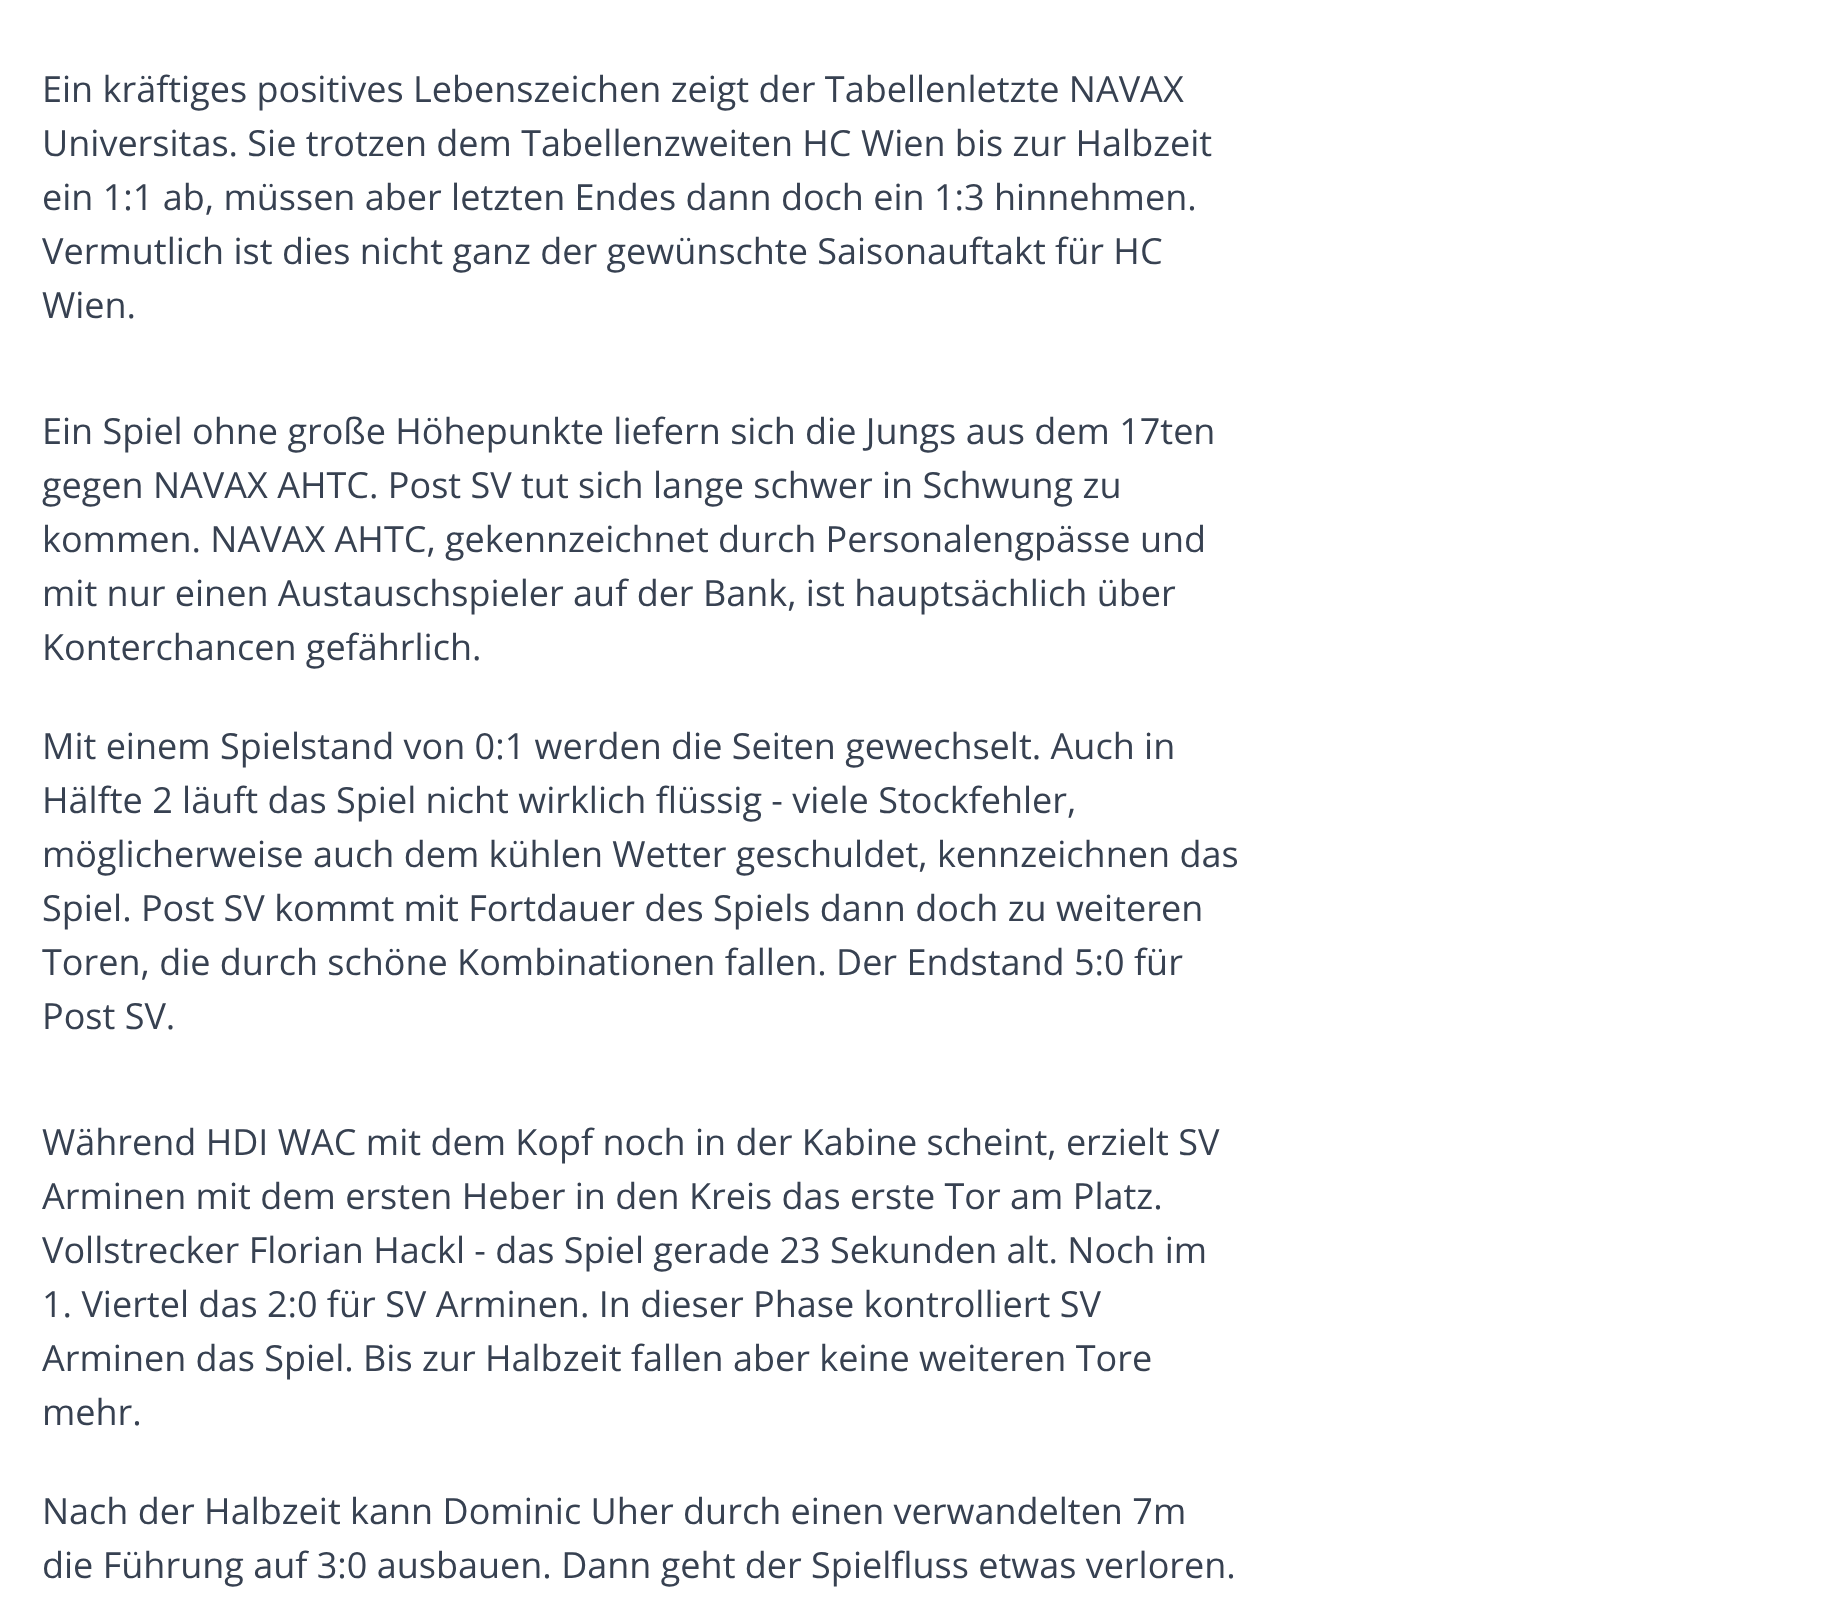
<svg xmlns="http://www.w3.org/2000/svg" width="1831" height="1605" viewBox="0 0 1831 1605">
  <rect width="100%" height="100%" fill="rgb(255,255,255)"/>
  <g font-family="Open Sans" font-size="36" fill="rgb(55,65,81)">
    <text>
      <tspan x="42" y="102">Ein kräftiges positives Lebenszeichen zeigt der Tabellenletzte NAVAX</tspan>
      <tspan x="42" y="156">Universitas. Sie trotzen dem Tabellenzweiten HC Wien bis zur Halbzeit</tspan>
      <tspan x="42" y="210">ein 1:1 ab, müssen aber letzten Endes dann doch ein 1:3 hinnehmen.</tspan>
      <tspan x="42" y="264">Vermutlich ist dies nicht ganz der gewünschte Saisonauftakt für HC</tspan>
      <tspan x="42" y="318">Wien.</tspan>
    </text>
    <text>
      <tspan x="42" y="444">Ein Spiel ohne große Höhepunkte liefern sich die Jungs aus dem 17ten</tspan>
      <tspan x="42" y="498">gegen NAVAX AHTC. Post SV tut sich lange schwer in Schwung zu</tspan>
      <tspan x="42" y="552">kommen. NAVAX AHTC, gekennzeichnet durch Personalengpässe und</tspan>
      <tspan x="42" y="606">mit nur einen Austauschspieler auf der Bank, ist hauptsächlich über</tspan>
      <tspan x="42" y="660">Konterchancen gefährlich.</tspan>
    </text>
    <text>
      <tspan x="42" y="759">Mit einem Spielstand von 0:1 werden die Seiten gewechselt. Auch in</tspan>
      <tspan x="42" y="813">Hälfte 2 läuft das Spiel nicht wirklich flüssig - viele Stockfehler,</tspan>
      <tspan x="42" y="867">möglicherweise auch dem kühlen Wetter geschuldet, kennzeichnen das</tspan>
      <tspan x="42" y="921">Spiel. Post SV kommt mit Fortdauer des Spiels dann doch zu weiteren</tspan>
      <tspan x="42" y="975">Toren, die durch schöne Kombinationen fallen. Der Endstand 5:0 für</tspan>
      <tspan x="42" y="1029">Post SV.</tspan>
    </text>
    <text>
      <tspan x="42" y="1155">Während HDI WAC mit dem Kopf noch in der Kabine scheint, erzielt SV</tspan>
      <tspan x="42" y="1209">Arminen mit dem ersten Heber in den Kreis das erste Tor am Platz.</tspan>
      <tspan x="42" y="1263">Vollstrecker Florian Hackl - das Spiel gerade 23 Sekunden alt. Noch im</tspan>
      <tspan x="42" y="1317">1. Viertel das 2:0 für SV Arminen. In dieser Phase kontrolliert SV</tspan>
      <tspan x="42" y="1371">Arminen das Spiel. Bis zur Halbzeit fallen aber keine weiteren Tore</tspan>
      <tspan x="42" y="1425">mehr.</tspan>
    </text>
    <text>
      <tspan x="42" y="1524">Nach der Halbzeit kann Dominic Uher durch einen verwandelten 7m</tspan>
      <tspan x="42" y="1578">die Führung auf 3:0 ausbauen. Dann geht der Spielfluss etwas verloren.</tspan>
    </text>
  </g>
</svg>
